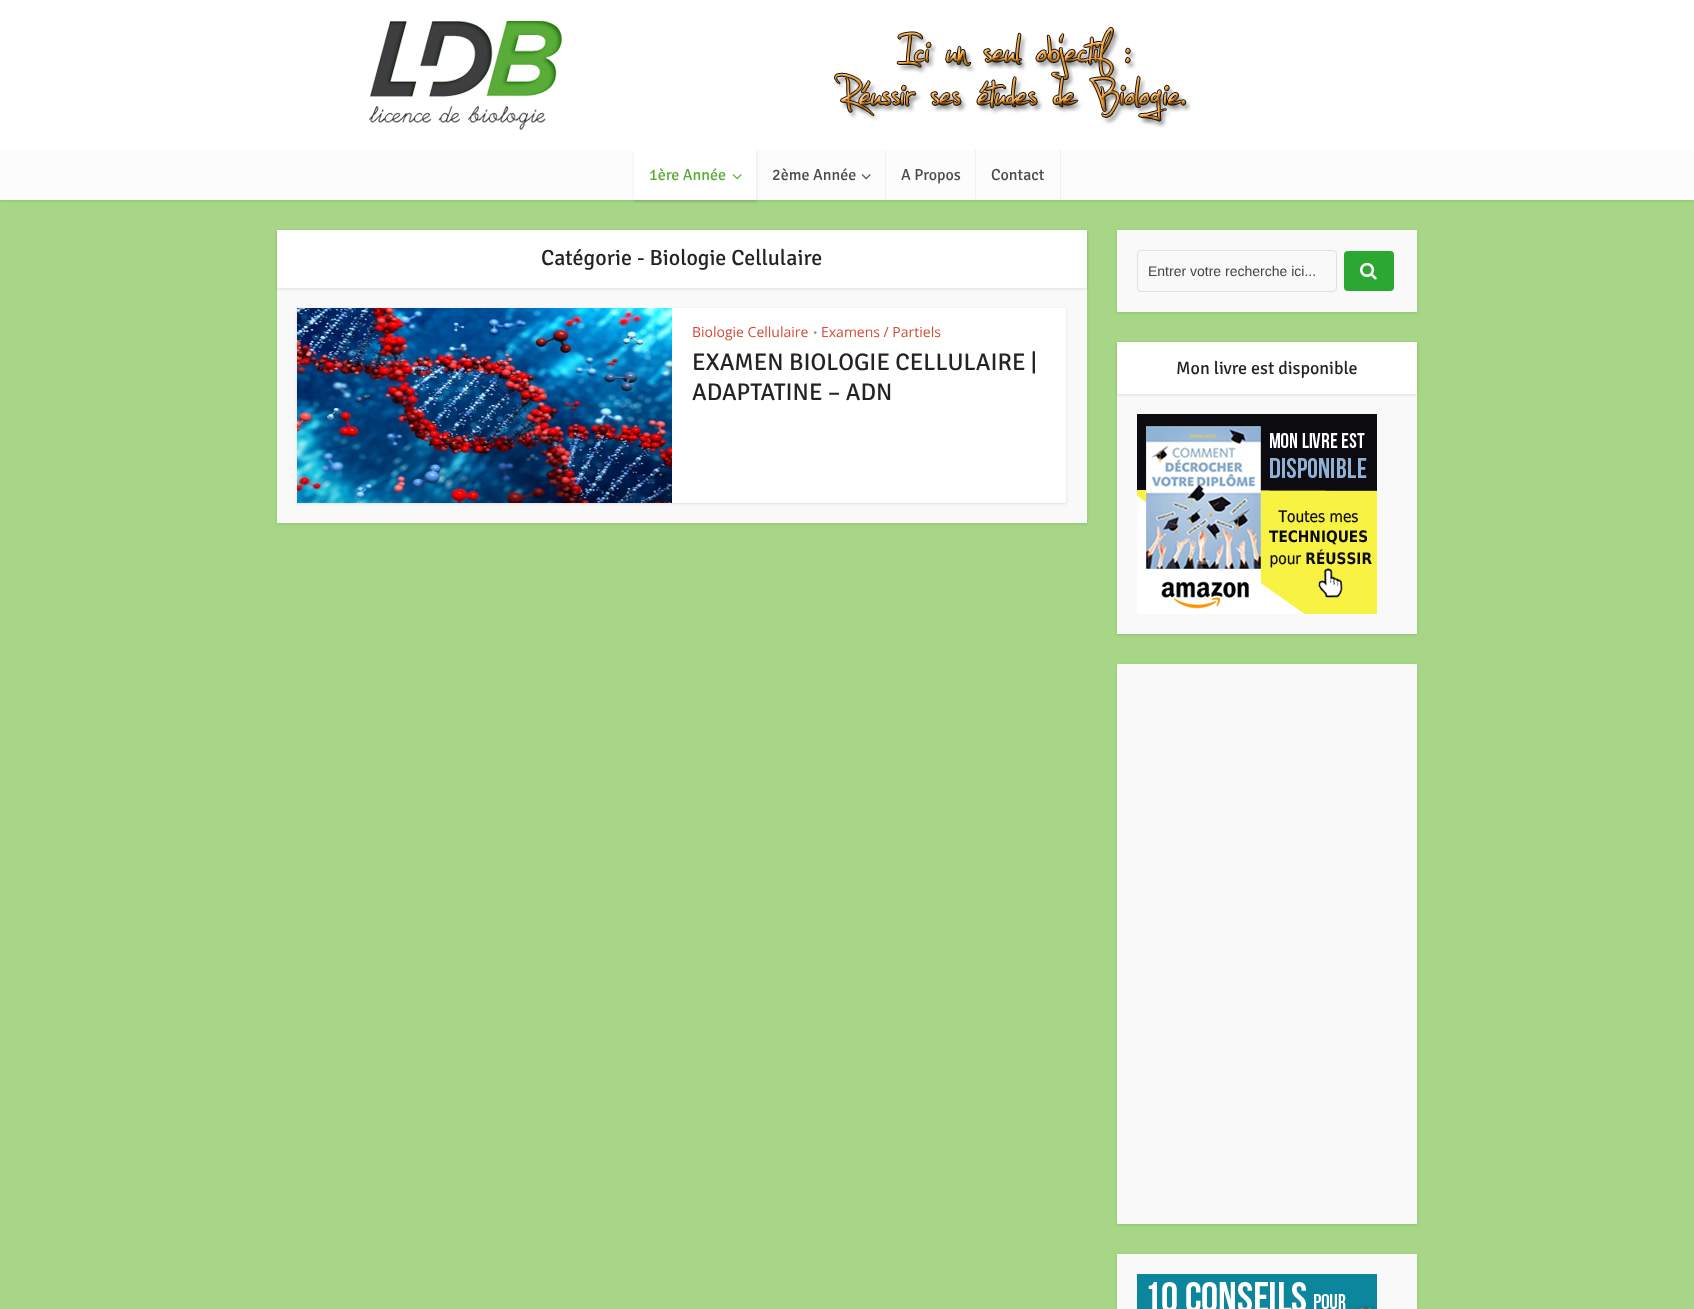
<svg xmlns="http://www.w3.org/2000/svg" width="1694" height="1309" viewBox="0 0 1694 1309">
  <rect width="100%" height="100%" fill="rgb(167,214,134)"/>
  <rect x="0" y="1" width="1694" height="200" fill="rgba(0,0,0,0.1)" filter="blur(1.5px)"/>
  <rect x="0" y="0" width="1694" height="150" fill="rgb(255,255,255)"/>
  <image x="369" y="21" width="822" height="109" href="pic1.png"/>
  <rect x="0" y="150" width="1694" height="50" fill="rgb(252,252,252)"/>
  <rect x="634" y="152" width="123" height="50" fill="rgba(0,0,0,0.1)" filter="blur(1px)"/>
  <rect x="634" y="150" width="122" height="50" fill="rgb(255,255,255)"/>
  <text x="649" y="180" font-family="Signika" font-size="16" font-weight="300" fill="rgb(88,173,56)">1ère Année</text>
  <image x="732" y="174" width="10" height="6" href="pic2.png"/>
  <rect x="756" y="150" width="1" height="50" fill="rgb(242,242,242)"/>
  <text x="772" y="180" font-family="Signika" font-size="16" font-weight="300" fill="rgb(74,74,74)">2ème Année</text>
  <image x="861" y="174" width="10" height="6" href="pic3.png"/>
  <rect x="885" y="150" width="1" height="50" fill="rgb(239,239,239)"/>
  <text x="901" y="180" font-family="Signika" font-size="16" font-weight="300" fill="rgb(74,74,74)">A Propos</text>
  <rect x="1060" y="150" width="1" height="50" fill="rgb(239,239,239)"/>
  <rect x="975" y="150" width="1" height="50" fill="rgb(239,239,239)"/>
  <text x="991" y="180" font-family="Signika" font-size="16" font-weight="300" fill="rgb(74,74,74)">Contact</text>
  <rect x="277" y="231" width="810" height="293" fill="rgba(0,0,0,0.1)" filter="blur(1.5px)"/>
  <rect x="277" y="288" width="810" height="235" fill="rgb(249,249,249)"/>
  <rect x="277" y="231" width="810" height="58" fill="rgba(0,0,0,0.1)" filter="blur(1.5px)"/>
  <rect x="277" y="230" width="810" height="58" fill="rgb(255,255,255)"/>
  <text x="541" y="265" font-family="Signika" font-size="22" font-weight="300" fill="rgb(35,35,35)">Catégorie - Biologie Cellulaire</text>
  <rect x="297" y="309" width="769" height="195" fill="rgba(0,0,0,0.1)" filter="blur(1.5px)"/>
  <rect x="672" y="308" width="394" height="195" fill="rgb(255,255,255)"/>
  <image x="297" y="308" width="375" height="195" href="pic4.png"/>
  <text x="692" y="337" font-family="Open Sans" font-size="14" fill="rgb(207,77,53)">Biologie Cellulaire</text>
  <text x="813" y="337" font-family="Open Sans" font-size="12" fill="rgb(155,155,155)">•</text>
  <text x="821" y="337" font-family="Open Sans" font-size="14" fill="rgb(207,77,53)">Examens / Partiels</text>
  <g font-family="Signika" font-size="24" font-weight="300" fill="rgb(35,35,35)">
    <text>
      <tspan x="692" y="370">EXAMEN BIOLOGIE CELLULAIRE |</tspan>
      <tspan x="692" y="400">ADAPTATINE – ADN</tspan>
    </text>
  </g>
  <rect x="1117" y="231" width="300" height="82" fill="rgba(0,0,0,0.1)" filter="blur(1.5px)"/>
  <rect x="1117" y="230" width="300" height="82" fill="rgb(249,249,249)"/>
  <rect x="1137.5" y="250.5" width="199" height="41" rx="3.5" fill="none" stroke="rgb(224,224,224)"/>
  <text x="1148" y="276" font-family="Liberation Sans" font-size="14" fill="rgb(68,68,68)">Entrer votre recherche ici...</text>
  <rect x="1344" y="251" width="50" height="40" rx="4" fill="rgb(43,168,49)"/>
  <image x="1360" y="262" width="17" height="18" href="pic5.png"/>
  <rect x="1117" y="343" width="300" height="292" fill="rgba(0,0,0,0.1)" filter="blur(1.5px)"/>
  <rect x="1117" y="394" width="300" height="240" fill="rgb(249,249,249)"/>
  <rect x="1117" y="343" width="300" height="52" fill="rgba(0,0,0,0.1)" filter="blur(1.5px)"/>
  <rect x="1117" y="342" width="300" height="52" fill="rgb(255,255,255)"/>
  <text x="1176" y="374" font-family="Signika" font-size="18" font-weight="300" fill="rgb(35,35,35)">Mon livre est disponible</text>
  <image x="1137" y="414" width="240" height="200" href="pic6.png"/>
  <rect x="1117" y="665" width="300" height="560" fill="rgba(0,0,0,0.1)" filter="blur(1.5px)"/>
  <rect x="1117" y="664" width="300" height="560" fill="rgb(249,249,249)"/>
  <rect x="1117" y="1255" width="300" height="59" fill="rgba(0,0,0,0.1)" filter="blur(1.5px)"/>
  <rect x="1117" y="1254" width="300" height="55" fill="rgb(249,249,249)"/>
  <image x="1137" y="1274" width="240" height="35" href="pic7.png"/>
</svg>
